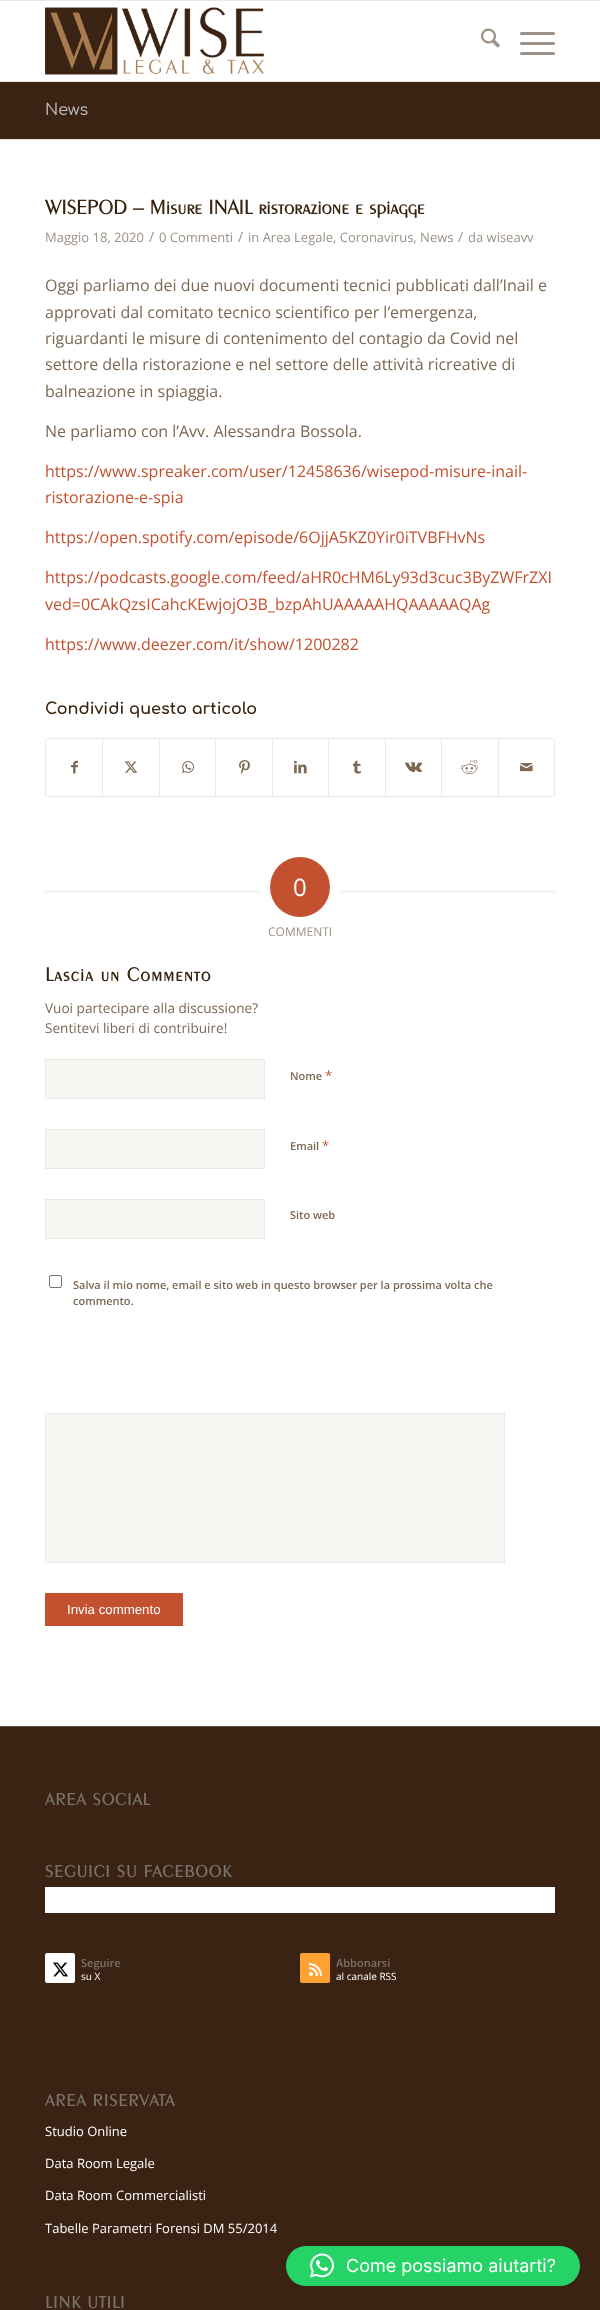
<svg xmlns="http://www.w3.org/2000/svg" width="600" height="2310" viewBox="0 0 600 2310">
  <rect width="100%" height="100%" fill="rgb(255,255,255)"/>
  <rect x="0" y="0" width="600" height="1" fill="rgb(235,232,226)"/>
  <rect x="0" y="81" width="600" height="1" fill="rgb(235,232,226)"/>
  <image x="45" y="7" width="219" height="68" href="pic1.png"/>
  <image x="481" y="28" width="19" height="20" href="pic2.png"/>
  <rect x="520" y="42" width="35" height="3" rx="1.5" fill="rgb(156,146,136)"/>
  <rect x="520" y="32" width="35" height="3" rx="1.5" fill="rgb(156,146,136)"/>
  <rect x="520" y="52" width="35" height="3" rx="1.5" fill="rgb(156,146,136)"/>
  <rect x="0" y="82" width="600" height="57" fill="rgb(59,35,20)"/>
  <text x="45" y="115" font-family="Comfortaa" font-size="16" fill="rgb(195,195,195)">News</text>
  <rect x="0" y="139" width="600" height="1" fill="rgb(235,232,226)"/>
  <text x="45" y="214" font-family="'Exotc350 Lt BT'" font-size="21" font-weight="bold" fill="rgb(56,36,16)">WISEPOD – Misure INAIL ristorazione e spiagge</text>
  <text x="45" y="242" font-family="Open Sans" font-size="13" fill="rgb(156,146,136)">Maggio 18, 2020</text>
  <text x="149" y="242" font-family="Open Sans" font-size="14" fill="rgb(156,146,136)">/</text>
  <text x="159" y="242" font-family="Open Sans" font-size="13" fill="rgb(156,146,136)">0 Commenti</text>
  <text x="238" y="242" font-family="Open Sans" font-size="14" fill="rgb(156,146,136)">/</text>
  <text x="248" y="242" font-family="Open Sans" font-size="13" fill="rgb(156,146,136)">in Area Legale, Coronavirus, News</text>
  <text x="458" y="242" font-family="Open Sans" font-size="14" fill="rgb(156,146,136)">/</text>
  <text x="468" y="242" font-family="Open Sans" font-size="13" fill="rgb(156,146,136)">da wiseavv</text>
  <g font-family="Open Sans" font-size="16" fill="rgb(124,104,83)">
    <text>
      <tspan x="45" y="291">Oggi parliamo dei due nuovi documenti tecnici pubblicati dall’Inail e</tspan>
      <tspan x="45" y="318">approvati dal comitato tecnico scientifico per l’emergenza,</tspan>
      <tspan x="45" y="344">riguardanti le misure di contenimento del contagio da Covid nel</tspan>
      <tspan x="45" y="370">settore della ristorazione e nel settore delle attività ricreative di</tspan>
      <tspan x="45" y="397">balneazione in spiaggia.</tspan>
    </text>
    <text x="45" y="437">Ne parliamo con l’Avv. Alessandra Bossola.</text>
  </g>
  <g font-family="Open Sans" font-size="16" fill="rgb(195,81,47)">
    <text>
      <tspan x="45" y="477">https://www.spreaker.com/user/12458636/wisepod-misure-inail-</tspan>
      <tspan x="45" y="503">ristorazione-e-spia</tspan>
    </text>
    <text x="45" y="543">https://open.spotify.com/episode/6OjjA5KZ0Yir0iTVBFHvNs</text>
    <text>
      <tspan x="45" y="583">https://podcasts.google.com/feed/aHR0cHM6Ly93d3cuc3ByZWFrZXI</tspan>
      <tspan x="45" y="610">ved=0CAkQzsICahcKEwjojO3B_bzpAhUAAAAAHQAAAAAQAg</tspan>
    </text>
    <text x="45" y="650">https://www.deezer.com/it/show/1200282</text>
  </g>
  <text x="45" y="714" font-family="Comfortaa" font-size="16" font-weight="bold" fill="rgb(56,36,16)">Condividi questo articolo</text>
  <rect x="45.5" y="738.5" width="509" height="58" rx="2.5" fill="none" stroke="rgb(235,232,226)"/>
  <image x="71" y="760" width="7" height="14" href="pic3.png"/>
  <rect x="102" y="739" width="1" height="57" fill="rgb(235,232,226)"/>
  <image x="124" y="761" width="14" height="12" href="pic4.png"/>
  <rect x="159" y="739" width="1" height="57" fill="rgb(235,232,226)"/>
  <image x="182" y="761" width="12" height="13" href="pic5.png"/>
  <rect x="215" y="739" width="1" height="57" fill="rgb(235,232,226)"/>
  <image x="239" y="760" width="11" height="14" href="pic6.png"/>
  <rect x="272" y="739" width="1" height="57" fill="rgb(235,232,226)"/>
  <image x="294" y="760" width="13" height="14" href="pic7.png"/>
  <rect x="328" y="739" width="1" height="57" fill="rgb(235,232,226)"/>
  <image x="353" y="760" width="8" height="14" href="pic8.png"/>
  <rect x="385" y="739" width="1" height="57" fill="rgb(235,232,226)"/>
  <image x="405" y="762" width="17" height="10" href="pic9.png"/>
  <rect x="441" y="739" width="1" height="57" fill="rgb(235,232,226)"/>
  <image x="461" y="760" width="17" height="15" href="pic10.png"/>
  <rect x="498" y="739" width="1" height="57" fill="rgb(235,232,226)"/>
  <image x="520" y="763" width="13" height="9" href="pic11.png"/>
  <rect x="45" y="891" width="214" height="1" fill="rgb(235,232,226)"/>
  <circle cx="300" cy="887" r="30" fill="rgb(195,81,47)"/>
  <text x="293" y="896" font-family="Open Sans" font-size="24" fill="rgb(255,255,255)">0</text>
  <rect x="341" y="891" width="214" height="1" fill="rgb(235,232,226)"/>
  <text x="268" y="936" font-family="Open Sans" font-size="12" fill="rgb(156,146,136)">COMMENTI</text>
  <text x="45" y="981" font-family="'Exotc350 Lt BT'" font-size="20" font-weight="bold" letter-spacing="1" fill="rgb(56,36,16)">Lascia un Commento</text>
  <g font-family="Open Sans" font-size="13.6" fill="rgb(124,104,83)">
    <text>
      <tspan x="45" y="1013">Vuoi partecipare alla discussione?</tspan>
      <tspan x="45" y="1033">Sentitevi liberi di contribuire!</tspan>
    </text>
  </g>
  <rect x="45.5" y="1059.5" width="219" height="39" fill="rgb(248,246,242)" stroke="rgb(235,232,226)"/>
  <text x="290" y="1080" font-family="Open Sans" font-size="11" font-weight="600" fill="rgb(124,104,83)">Nome</text>
  <text x="325" y="1080" font-family="Open Sans" font-size="13" fill="rgb(195,81,47)">*</text>
  <rect x="45.5" y="1129.5" width="219" height="39" fill="rgb(248,246,242)" stroke="rgb(235,232,226)"/>
  <text x="290" y="1150" font-family="Open Sans" font-size="11" font-weight="600" fill="rgb(124,104,83)">Email</text>
  <text x="322" y="1150" font-family="Open Sans" font-size="13" fill="rgb(195,81,47)">*</text>
  <rect x="45.5" y="1199.5" width="219" height="39" fill="rgb(248,246,242)" stroke="rgb(235,232,226)"/>
  <text x="290" y="1219" font-family="Open Sans" font-size="11" font-weight="600" fill="rgb(124,104,83)">Sito web</text>
  <rect x="49.5" y="1275.5" width="12" height="12" rx="1.5" fill="none" stroke="rgb(118,118,118)"/>
  <g font-family="Open Sans" font-size="11" font-weight="600" fill="rgb(124,104,83)">
    <text>
      <tspan x="73" y="1289">Salva il mio nome, email e sito web in questo browser per la prossima volta che</tspan>
      <tspan x="73" y="1305">commento.</tspan>
    </text>
  </g>
  <rect x="45.5" y="1413.5" width="459" height="149" fill="rgb(248,246,242)" stroke="rgb(235,232,226)"/>
  <rect x="45" y="1593" width="138" height="33" fill="rgb(195,81,47)"/>
  <text x="67" y="1614" font-family="Liberation Sans" font-size="13.25" fill="rgb(255,255,255)">Invia commento</text>
  <rect x="0" y="1727" width="600" height="583" fill="rgb(59,35,20)"/>
  <rect x="0" y="1726" width="600" height="1" fill="rgb(87,81,73)"/>
  <g font-family="'Exotc350 Lt BT'" font-size="17.6" font-weight="bold" letter-spacing="1" fill="rgb(122,115,107)">
    <text x="45" y="1805">AREA SOCIAL</text>
    <text x="45" y="1877">SEGUICI SU FACEBOOK</text>
  </g>
  <rect x="45" y="1887" width="510" height="26" fill="rgb(255,255,255)"/>
  <rect x="45" y="1953" width="30" height="30" rx="2" fill="rgb(255,255,255)"/>
  <image x="53" y="1962" width="15" height="15" href="pic12.png"/>
  <text x="81" y="1967" font-family="Open Sans" font-size="11" font-weight="600" fill="rgb(122,115,107)">Seguire</text>
  <text x="81" y="1980" font-family="Open Sans" font-size="10" fill="rgb(255,255,255)">su X</text>
  <rect x="300" y="1953" width="30" height="30" rx="2" fill="rgb(255,161,51)"/>
  <image x="309" y="1963" width="13" height="13" href="pic13.png"/>
  <text x="336" y="1967" font-family="Open Sans" font-size="11" font-weight="600" fill="rgb(122,115,107)">Abbonarsi</text>
  <text x="336" y="1980" font-family="Open Sans" font-size="10" fill="rgb(255,255,255)">al canale RSS</text>
  <text x="45" y="2106" font-family="'Exotc350 Lt BT'" font-size="17.6" font-weight="bold" letter-spacing="1" fill="rgb(122,115,107)">AREA RISERVATA</text>
  <g font-family="Open Sans" font-size="13" fill="rgb(255,255,255)">
    <text x="45" y="2136">Studio Online</text>
    <text x="45" y="2168">Data Room Legale</text>
    <text x="45" y="2200">Data Room Commercialisti</text>
    <text x="45" y="2233">Tabelle Parametri Forensi DM 55/2014</text>
  </g>
  <text x="45" y="2308" font-family="'Exotc350 Lt BT'" font-size="17.6" font-weight="bold" letter-spacing="1" fill="rgb(122,115,107)">LINK UTILI</text>
  <rect x="286" y="2246" width="294" height="40" rx="20" fill="rgb(37,211,102)"/>
  <image x="310" y="2253" width="24" height="25" href="pic14.png"/>
  <text x="346" y="2272" font-family="Inter" font-size="18" fill="rgb(255,255,255)">Come possiamo aiutarti?</text>
</svg>
